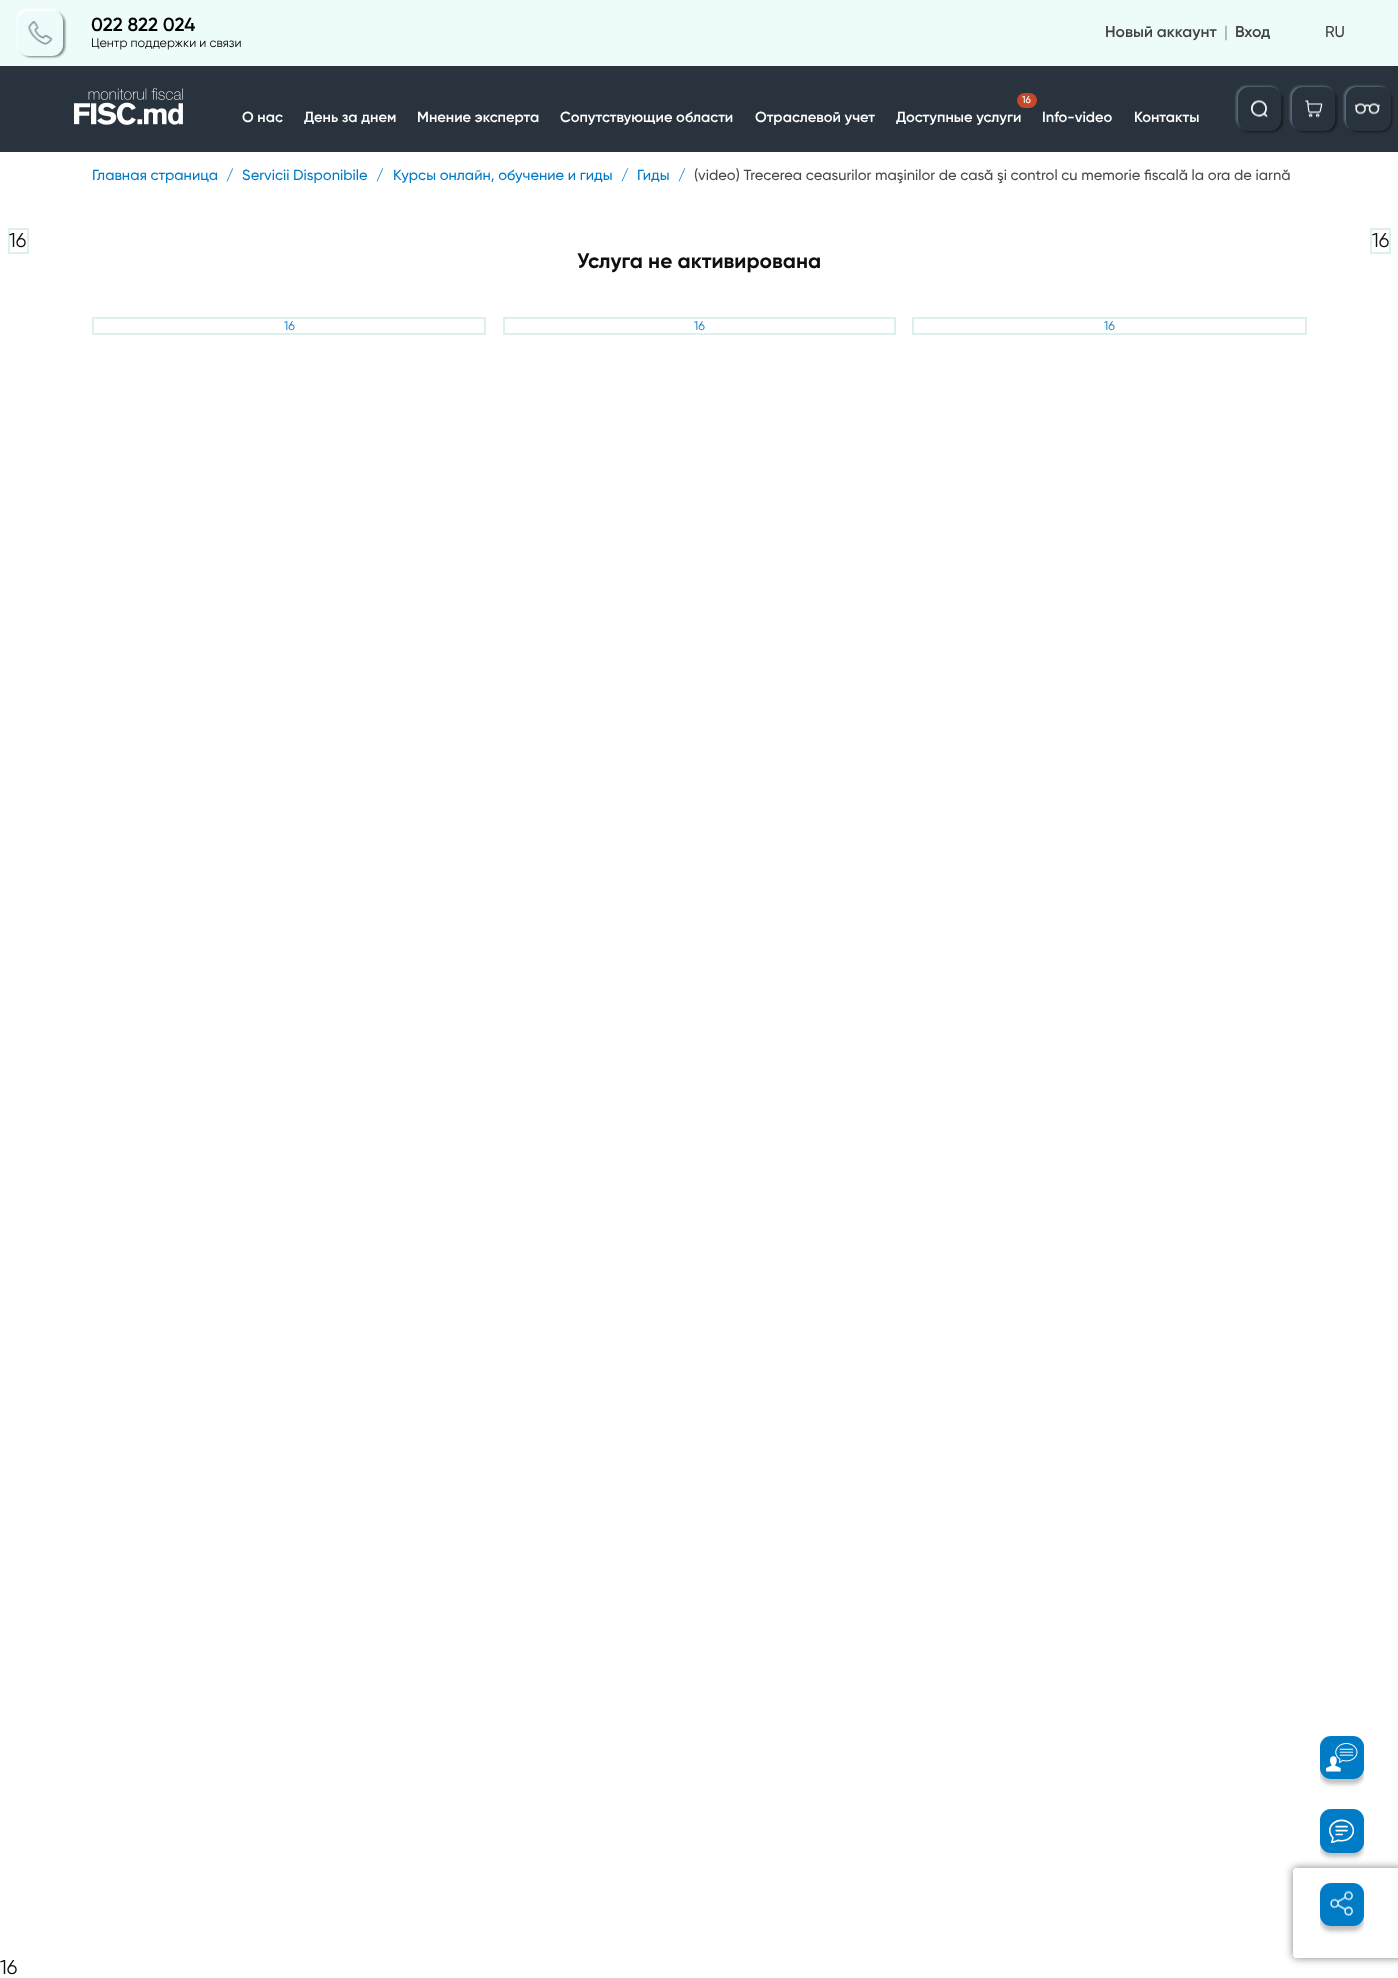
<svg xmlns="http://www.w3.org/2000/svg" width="1398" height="1978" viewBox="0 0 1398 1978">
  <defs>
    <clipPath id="clip1"><rect x="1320" y="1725" width="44" height="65" rx="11"/></clipPath>
    <clipPath id="clip2"><rect x="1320" y="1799" width="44" height="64" rx="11"/></clipPath>
    <clipPath id="clip3"><path d="M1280 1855H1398V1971H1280ZM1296 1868H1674C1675.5 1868 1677 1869.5 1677 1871V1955C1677 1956.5 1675.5 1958 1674 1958H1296C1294.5 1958 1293 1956.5 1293 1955V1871C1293 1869.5 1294.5 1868 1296 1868Z" clip-rule="evenodd"/></clipPath>
    <clipPath id="clip4"><rect x="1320" y="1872" width="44" height="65" rx="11"/></clipPath>
  </defs>
  <rect width="100%" height="100%" fill="rgb(255,255,255)"/>
  <rect x="0" y="0" width="1398" height="66" fill="rgb(238,251,251)"/>
  <rect x="20" y="12" width="45" height="45" rx="11" fill="rgba(0,0,0,0.5)" filter="blur(1px)"/>
  <rect x="17" y="9" width="45" height="45" rx="11" fill="rgb(255,255,255)" filter="blur(1px)"/>
  <rect x="18" y="11" width="45" height="45" rx="11" fill="rgb(238,251,251)"/>
  <image x="28" y="21" width="25" height="24" href="pic1.png"/>
  <text x="91" y="31" font-family="Gilroy" font-size="19" font-weight="600" fill="rgb(0,0,0)">022 822 024</text>
  <text x="91" y="47" font-family="Gilroy" font-size="12.6" fill="rgb(0,0,0)">Центр поддержки и связи</text>
  <text x="1105" y="37" font-family="Gilroy" font-size="15.75" font-weight="600" fill="rgb(65,65,65)">Новый аккаунт</text>
  <text x="1224" y="37" font-family="Gilroy" font-size="15.75" font-weight="600" fill="rgb(175,175,175)">|</text>
  <text x="1235" y="37" font-family="Gilroy" font-size="15.75" font-weight="600" fill="rgb(65,65,65)">Вход</text>
  <text x="1325" y="37" font-family="Gilroy" font-size="15.75" font-weight="500" fill="rgb(65,65,65)">RU</text>
  <rect x="0" y="66" width="1398" height="86" fill="rgb(41,51,61)"/>
  <image x="74" y="88" width="109" height="37" href="pic2.png"/>
  <g font-family="Gilroy" font-size="14.7" font-weight="600" fill="rgb(255,255,255)">
    <text x="242" y="122">О нас</text>
    <text x="304" y="122">День за днем</text>
    <text x="417" y="122">Мнение эксперта</text>
    <text x="560" y="122">Сопутствующие области</text>
    <text x="755" y="122">Отраслевой учет</text>
  </g>
  <rect x="1017" y="93" width="20" height="15" rx="7.5" fill="rgb(195,73,41)"/>
  <text x="1022" y="103" font-family="Gilroy" font-size="10" font-weight="500" fill="rgb(255,255,255)">16</text>
  <g font-family="Gilroy" font-size="14.7" font-weight="600" fill="rgb(255,255,255)">
    <text x="896" y="122">Доступные услуги</text>
    <text x="1042" y="122">Info-video</text>
    <text x="1134" y="122">Контакты</text>
  </g>
  <rect x="1239" y="89" width="44" height="43" rx="11" fill="rgba(0,0,0,0.5)" filter="blur(1px)"/>
  <rect x="1236" y="86" width="44" height="43" rx="11" fill="rgb(92,109,126)" filter="blur(1px)"/>
  <rect x="1238" y="87" width="43" height="44" rx="11" fill="rgb(41,51,61)"/>
  <image x="1251" y="100" width="17" height="18" href="pic3.png"/>
  <rect x="1293" y="89" width="44" height="43" rx="11" fill="rgba(0,0,0,0.5)" filter="blur(1px)"/>
  <rect x="1290" y="86" width="44" height="43" rx="11" fill="rgb(92,109,126)" filter="blur(1px)"/>
  <rect x="1292" y="87" width="43" height="44" rx="11" fill="rgb(41,51,61)"/>
  <image x="1305" y="100" width="18" height="18" href="pic4.png"/>
  <rect x="1347" y="89" width="45" height="43" rx="11" fill="rgba(0,0,0,0.5)" filter="blur(1px)"/>
  <rect x="1344" y="86" width="45" height="43" rx="11" fill="rgb(92,109,126)" filter="blur(1px)"/>
  <rect x="1346" y="87" width="45" height="44" rx="11" fill="rgb(41,51,61)"/>
  <image x="1354" y="103" width="26" height="12" href="pic5.png"/>
  <g font-family="Gilroy" font-size="14.7" font-weight="500" fill="rgb(0,124,199)">
    <text x="92" y="180">Главная страница</text>
    <text x="226" y="180">/</text>
    <text x="242" y="180">Servicii Disponibile</text>
    <text x="376" y="180">/</text>
    <text x="393" y="180">Курсы онлайн, обучение и гиды</text>
    <text x="621" y="180">/</text>
    <text x="637" y="180">Гиды</text>
    <text x="678" y="180">/</text>
  </g>
  <text x="694" y="180" font-family="Gilroy" font-size="14.7" font-weight="500" fill="rgb(74,74,74)">(video) Trecerea ceasurilor maşinilor de casă şi control cu memorie fiscală la ora de iarnă</text>
  <rect x="9" y="229" width="19" height="24" fill="none" stroke="rgb(221,240,240)" stroke-width="2"/>
  <text x="9" y="247" font-family="Gilroy" font-size="20" fill="rgb(15,15,15)">16</text>
  <rect x="1371" y="229" width="19" height="24" fill="none" stroke="rgb(221,240,240)" stroke-width="2"/>
  <text x="1372" y="247" font-family="Gilroy" font-size="20" fill="rgb(15,15,15)">16</text>
  <text x="577" y="268" font-family="Gilroy" font-size="21" font-weight="bold" fill="rgb(15,15,15)">Услуга не активирована</text>
  <rect x="93" y="318" width="392" height="16" fill="none" stroke="rgb(221,240,240)" stroke-width="2"/>
  <text x="284" y="330" font-family="Gilroy" font-size="12.6" fill="rgb(0,124,199)">16</text>
  <rect x="504" y="318" width="391" height="16" fill="none" stroke="rgb(221,240,240)" stroke-width="2"/>
  <text x="694" y="330" font-family="Gilroy" font-size="12.6" fill="rgb(0,124,199)">16</text>
  <rect x="913" y="318" width="393" height="16" fill="none" stroke="rgb(221,240,240)" stroke-width="2"/>
  <text x="1104" y="330" font-family="Gilroy" font-size="12.6" fill="rgb(0,124,199)">16</text>
  <g clip-path="url(#clip1)">
    <rect x="1320" y="1740" width="44" height="44" rx="11" fill="rgba(0,0,0,0.25)" filter="blur(2px)"/>
  </g>
  <rect x="1320" y="1736" width="44" height="43" rx="11" fill="rgb(0,124,199)"/>
  <image x="1326" y="1743" width="32" height="29" href="pic6.png"/>
  <g clip-path="url(#clip2)">
    <rect x="1320" y="1814" width="44" height="43" rx="11" fill="rgba(0,0,0,0.25)" filter="blur(2px)"/>
  </g>
  <rect x="1320" y="1809" width="44" height="44" rx="11" fill="rgb(0,124,199)"/>
  <image x="1329" y="1819" width="25" height="24" href="pic7.png"/>
  <g clip-path="url(#clip3)">
    <rect x="1293" y="1868" width="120" height="90" rx="3" fill="rgb(128,128,128)" filter="blur(4px)"/>
  </g>
  <g clip-path="url(#clip4)">
    <rect x="1320" y="1887" width="44" height="44" rx="11" fill="rgba(0,0,0,0.25)" filter="blur(2px)"/>
  </g>
  <rect x="1320" y="1883" width="44" height="43" rx="11" fill="rgb(0,124,199)"/>
  <image x="1330" y="1891" width="23" height="25" href="pic8.png"/>
  <text x="0" y="1974" font-family="Gilroy" font-size="20" fill="rgb(15,15,15)">16</text>
</svg>
